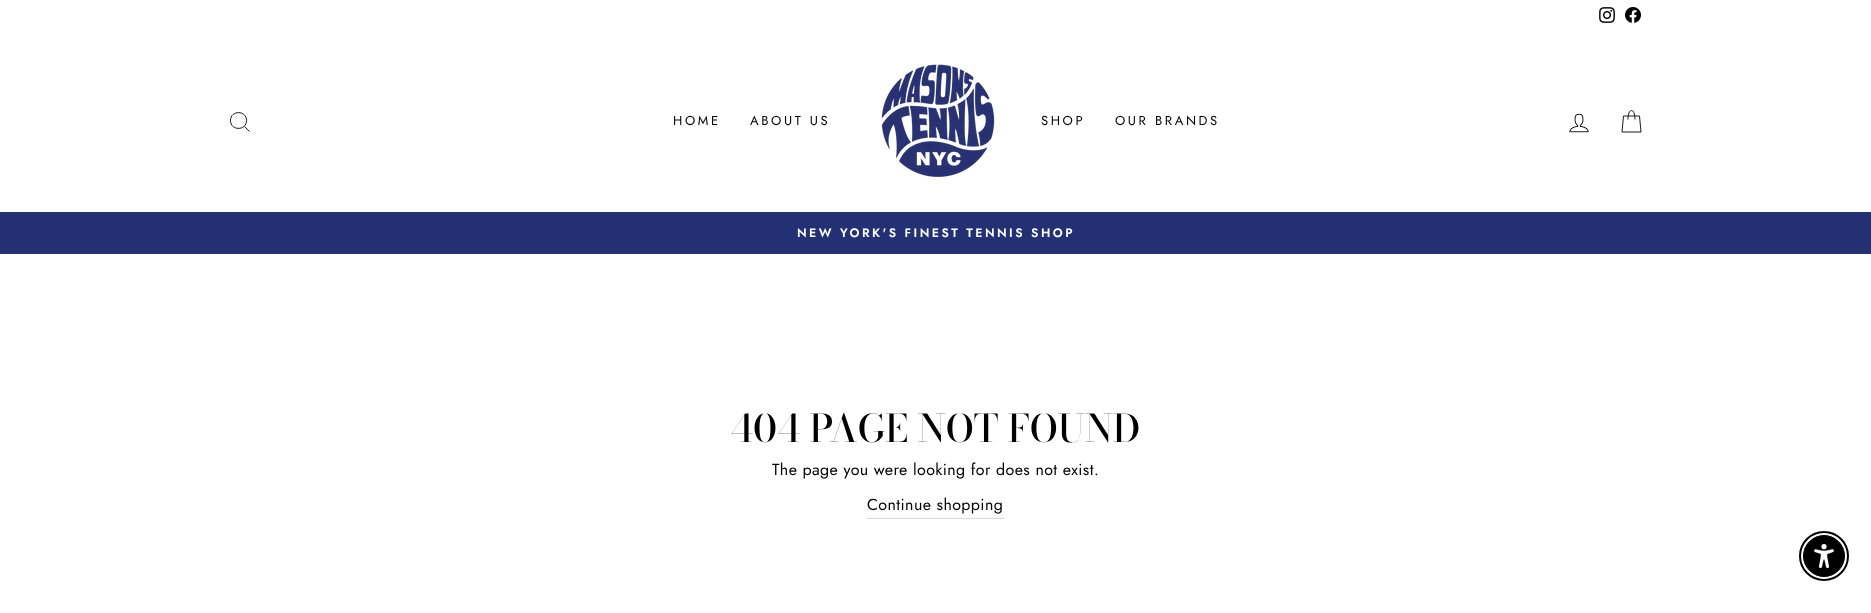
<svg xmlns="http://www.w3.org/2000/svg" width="1871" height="613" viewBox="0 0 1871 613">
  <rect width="100%" height="100%" fill="rgb(255,255,255)"/>
  <image x="1599" y="7" width="16" height="16" href="pic1.png"/>
  <image x="1625" y="7" width="16" height="16" href="pic2.png"/>
  <path d="M246.5 120.5C246.5 131 230.5 131 230.5 120.5C230.5 110 246.5 110 246.5 120.5ZM249.5 131.5L244.5 126.5" fill="none" stroke="rgb(0,0,0)" stroke-width="0.9"/>
  <g font-family="Jost" font-size="13" letter-spacing="2.6" fill="rgb(0,0,0)">
    <text x="673" y="125">HOME</text>
    <text x="750" y="125">ABOUT US</text>
  </g>
  <image x="881" y="64" width="114" height="113" href="pic3.png"/>
  <g font-family="Jost" font-size="13" letter-spacing="2.6" fill="rgb(0,0,0)">
    <text x="1041" y="125">SHOP</text>
    <text x="1115" y="125">OUR BRANDS</text>
  </g>
  <image x="1569" y="113" width="20" height="20" href="pic4.png"/>
  <path d="M1628 119.5C1628 107.5 1635 107.5 1635 119.5M1623.5 116H1639.5L1641 132H1622Z" fill="none" stroke="rgb(0,0,0)" stroke-width="0.9"/>
  <rect x="0" y="212" width="1871" height="42" fill="rgb(35,48,116)"/>
  <text x="797" y="237" font-family="Jost" font-size="12.25" font-weight="600" letter-spacing="2.45" fill="rgb(255,255,255)">NEW YORK'S FINEST TENNIS SHOP</text>
  <text x="730" y="442" font-family="Bodoni Moda" font-size="38" font-weight="500" fill="rgb(0,0,0)">404 PAGE NOT FOUND</text>
  <text x="772" y="475" font-family="Jost" font-size="16" letter-spacing="0.4" fill="rgb(0,0,0)">The page you were looking for does not exist.</text>
  <rect x="867" y="518" width="137" height="1" fill="rgb(217,217,217)"/>
  <text x="867" y="510" font-family="Jost" font-size="16" letter-spacing="0.4" fill="rgb(0,0,0)">Continue shopping</text>
  <circle cx="1824" cy="556" r="24" fill="none" stroke="rgb(0,0,0)" stroke-width="2"/>
  <circle cx="1824" cy="556" r="20.5" fill="rgb(0,0,0)" stroke="rgb(0,0,0)"/>
  <image x="1814" y="544" width="20" height="24" href="pic5.png"/>
</svg>
